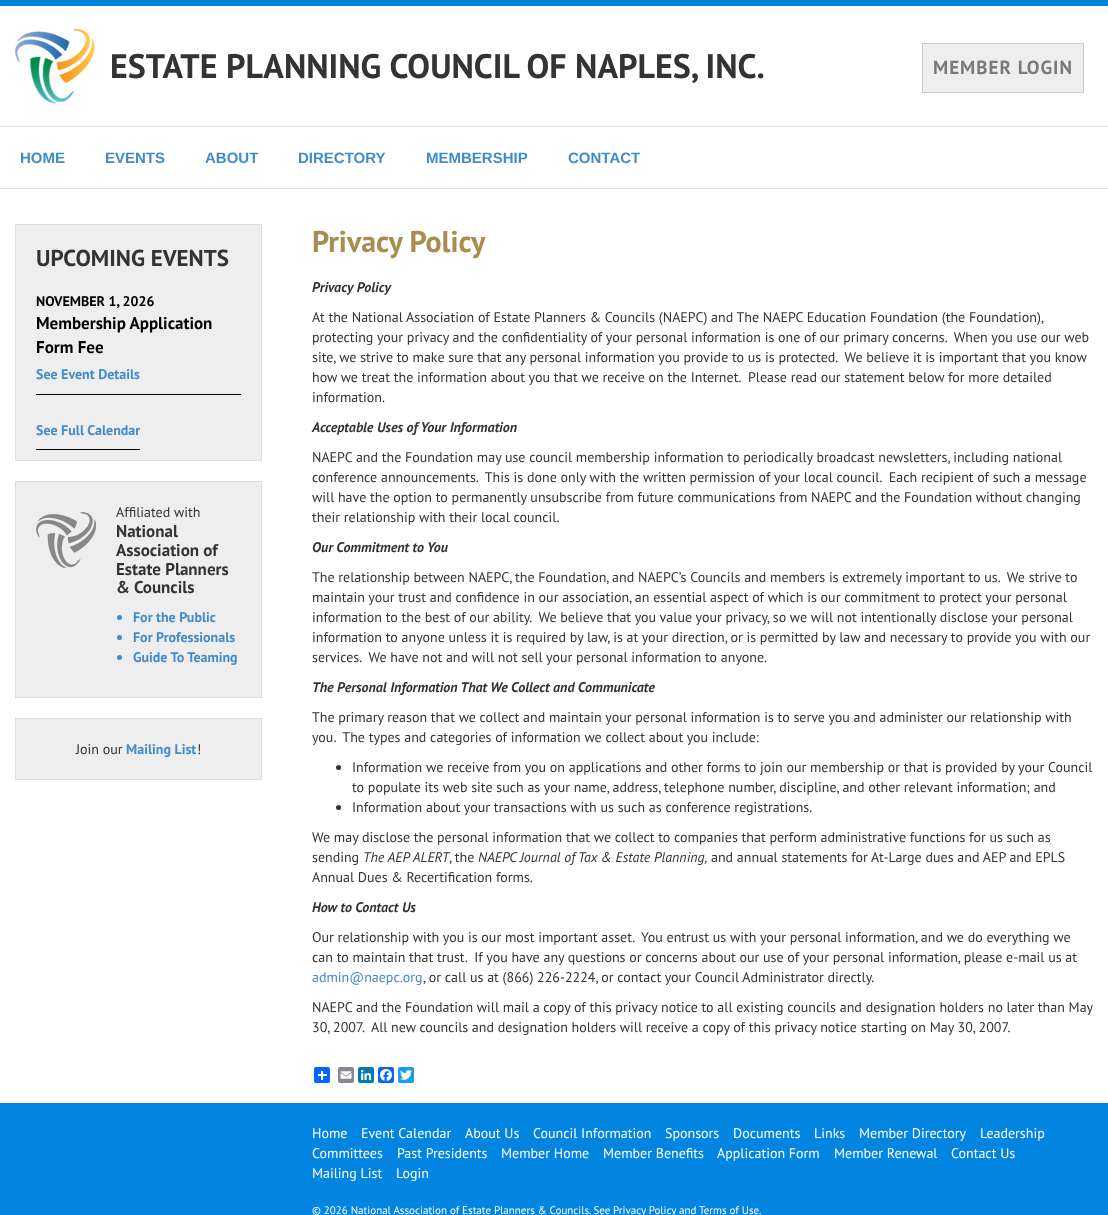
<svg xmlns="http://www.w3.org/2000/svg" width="1108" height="1215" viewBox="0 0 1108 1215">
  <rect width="100%" height="100%" fill="rgb(255,255,255)"/>
  <rect x="0" y="0" width="1108" height="6" fill="rgb(1,133,225)"/>
  <rect x="0" y="126" width="1108" height="1" fill="rgb(221,221,221)"/>
  <image x="15" y="28" width="80" height="76" href="pic1.png"/>
  <text x="110" y="78" font-family="PT Sans" font-size="34" font-weight="bold" fill="rgb(51,51,51)">ESTATE PLANNING COUNCIL OF NAPLES, INC.</text>
  <rect x="922.5" y="43.5" width="161" height="49" fill="rgb(238,238,238)" stroke="rgb(204,204,204)"/>
  <text x="933" y="74" font-family="PT Sans" font-size="19" font-weight="bold" letter-spacing="1" fill="rgb(124,121,123)">MEMBER LOGIN</text>
  <rect x="0" y="188" width="1108" height="1" fill="rgb(221,221,221)"/>
  <g font-family="Liberation Sans" font-size="15" font-weight="bold" fill="rgb(66,139,202)">
    <text x="20" y="163">HOME</text>
    <text x="105" y="163">EVENTS</text>
    <text x="205" y="163">ABOUT</text>
    <text x="298" y="163">DIRECTORY</text>
    <text x="426" y="163">MEMBERSHIP</text>
    <text x="568" y="163">CONTACT</text>
  </g>
  <rect x="15.5" y="224.5" width="246" height="236" fill="rgb(238,238,238)" stroke="rgb(221,221,221)"/>
  <text x="36" y="266" font-family="PT Sans" font-size="23" font-weight="bold" fill="rgb(51,51,51)">UPCOMING EVENTS</text>
  <rect x="36" y="394" width="205" height="1" fill="rgb(0,0,0)"/>
  <text x="36" y="306" font-family="PT Sans" font-size="14" font-weight="bold" fill="rgb(0,0,0)">NOVEMBER 1, 2026</text>
  <g font-family="PT Sans" font-size="17" font-weight="bold" fill="rgb(0,0,0)">
    <text>
      <tspan x="36" y="329">Membership Application</tspan>
      <tspan x="36" y="353">Form Fee</tspan>
    </text>
  </g>
  <g font-family="PT Sans" font-size="14" font-weight="bold" fill="rgb(66,139,202)">
    <text x="36" y="379">See Event Details</text>
    <text x="36" y="435">See Full Calendar</text>
  </g>
  <rect x="36" y="449" width="104" height="1" fill="rgb(0,0,0)"/>
  <rect x="15.5" y="481.5" width="246" height="216" fill="rgb(238,238,238)" stroke="rgb(221,221,221)"/>
  <image x="36" y="512" width="60" height="56" href="pic2.png"/>
  <text x="116" y="517" font-family="PT Sans" font-size="14" fill="rgb(51,51,51)">Affiliated with</text>
  <g font-family="PT Sans" font-size="17" font-weight="bold" fill="rgb(51,51,51)">
    <text>
      <tspan x="116" y="537">National</tspan>
      <tspan x="116" y="556">Association of</tspan>
      <tspan x="116" y="575">Estate Planners</tspan>
      <tspan x="116" y="593">&amp; Councils</tspan>
    </text>
  </g>
  <circle cx="119.5" cy="617.5" r="2.5" fill="rgb(66,139,202)"/>
  <text x="133" y="622" font-family="PT Sans" font-size="14" font-weight="bold" fill="rgb(66,139,202)">For the Public</text>
  <circle cx="119.5" cy="637.5" r="2.5" fill="rgb(66,139,202)"/>
  <text x="133" y="642" font-family="PT Sans" font-size="14" font-weight="bold" fill="rgb(66,139,202)">For Professionals</text>
  <circle cx="119.5" cy="657.5" r="2.5" fill="rgb(66,139,202)"/>
  <text x="133" y="662" font-family="PT Sans" font-size="14" font-weight="bold" fill="rgb(66,139,202)">Guide To Teaming</text>
  <rect x="15.5" y="718.5" width="246" height="61" fill="rgb(238,238,238)" stroke="rgb(221,221,221)"/>
  <text x="76" y="754" font-family="PT Sans" font-size="14" fill="rgb(51,51,51)">Join our</text>
  <text x="126" y="754" font-family="PT Sans" font-size="14" font-weight="bold" fill="rgb(66,139,202)">Mailing List</text>
  <text x="197" y="754" font-family="PT Sans" font-size="14" fill="rgb(51,51,51)">!</text>
  <text x="312" y="252" font-family="PT Sans" font-size="30" font-weight="bold" fill="rgb(168,141,79)">Privacy Policy</text>
  <text x="312" y="292" font-family="PT Sans" font-size="14" font-weight="bold" font-style="italic" fill="rgb(51,51,51)">Privacy Policy</text>
  <g font-family="PT Sans" font-size="14" fill="rgb(51,51,51)">
    <text xml:space="preserve"><tspan x="312" y="322">At the National Association of Estate Planners &amp; Councils (NAEPC) and The NAEPC Education Foundation (the Foundation),</tspan><tspan x="312" y="342">protecting your privacy and the confidentiality of your personal information is one of our primary concerns.  When you use our web</tspan><tspan x="312" y="362">site, we strive to make sure that any personal information you provide to us is protected.  We believe it is important that you know</tspan><tspan x="312" y="382">how we treat the information about you that we receive on the Internet.  Please read our statement below for more detailed</tspan><tspan x="312" y="402">information.</tspan></text>
  </g>
  <text x="312" y="432" font-family="PT Sans" font-size="14" font-weight="bold" font-style="italic" fill="rgb(51,51,51)">Acceptable Uses of Your Information</text>
  <g font-family="PT Sans" font-size="14" fill="rgb(51,51,51)">
    <text xml:space="preserve"><tspan x="312" y="462">NAEPC and the Foundation may use council membership information to periodically broadcast newsletters, including national</tspan><tspan x="312" y="482">conference announcements.  This is done only with the written permission of your local council.  Each recipient of such a message</tspan><tspan x="312" y="502">will have the option to permanently unsubscribe from future communications from NAEPC and the Foundation without changing</tspan><tspan x="312" y="522">their relationship with their local council.</tspan></text>
  </g>
  <text x="312" y="552" font-family="PT Sans" font-size="14" font-weight="bold" font-style="italic" fill="rgb(51,51,51)">Our Commitment to You</text>
  <g font-family="PT Sans" font-size="14" fill="rgb(51,51,51)">
    <text xml:space="preserve"><tspan x="312" y="582">The relationship between NAEPC, the Foundation, and NAEPC’s Councils and members is extremely important to us.  We strive to</tspan><tspan x="312" y="602">maintain your trust and confidence in our association, an essential aspect of which is our commitment to protect your personal</tspan><tspan x="312" y="622">information to the best of our ability.  We believe that you value your privacy, so we will not intentionally disclose your personal</tspan><tspan x="312" y="642">information to anyone unless it is required by law, is at your direction, or is permitted by law and necessary to provide you with our</tspan><tspan x="312" y="662">services.  We have not and will not sell your personal information to anyone.</tspan></text>
  </g>
  <text x="312" y="692" font-family="PT Sans" font-size="14" font-weight="bold" font-style="italic" fill="rgb(51,51,51)">The Personal Information That We Collect and Communicate</text>
  <g font-family="PT Sans" font-size="14" fill="rgb(51,51,51)">
    <text xml:space="preserve"><tspan x="312" y="722">The primary reason that we collect and maintain your personal information is to serve you and administer our relationship with</tspan><tspan x="312" y="742">you.  The types and categories of information we collect about you include:</tspan></text>
  </g>
  <circle cx="338.5" cy="767.5" r="2.5" fill="rgb(51,51,51)"/>
  <g font-family="PT Sans" font-size="14" fill="rgb(51,51,51)">
    <text>
      <tspan x="352" y="772">Information we receive from you on applications and other forms to join our membership or that is provided by your Council</tspan>
      <tspan x="352" y="792">to populate its web site such as your name, address, telephone number, discipline, and other relevant information; and</tspan>
    </text>
  </g>
  <circle cx="338.5" cy="807.5" r="2.5" fill="rgb(51,51,51)"/>
  <g font-family="PT Sans" font-size="14" fill="rgb(51,51,51)">
    <text x="352" y="812">Information about your transactions with us such as conference registrations.</text>
    <text>
      <tspan x="312" y="842">We may disclose the personal information that we collect to companies that perform administrative functions for us such as</tspan>
      <tspan x="312" y="862">sending</tspan>
    </text>
  </g>
  <text x="363" y="862" font-family="PT Sans" font-size="14" font-style="italic" fill="rgb(51,51,51)">The AEP ALERT</text>
  <text x="449" y="862" font-family="PT Sans" font-size="14" fill="rgb(51,51,51)">, the</text>
  <text x="478" y="862" font-family="PT Sans" font-size="14" font-style="italic" fill="rgb(51,51,51)">NAEPC Journal of Tax &amp; Estate Planning,</text>
  <g font-family="PT Sans" font-size="14" fill="rgb(51,51,51)">
    <text x="711" y="862">and annual statements for At-Large dues and AEP and EPLS</text>
    <text x="312" y="882">Annual Dues &amp; Recertification forms.</text>
  </g>
  <text x="312" y="912" font-family="PT Sans" font-size="14" font-weight="bold" font-style="italic" fill="rgb(51,51,51)">How to Contact Us</text>
  <g font-family="PT Sans" font-size="14" fill="rgb(51,51,51)">
    <text xml:space="preserve"><tspan x="312" y="942">Our relationship with you is our most important asset.  You entrust us with your personal information, and we do everything we</tspan><tspan x="312" y="962">can to maintain that trust.  If you have any questions or concerns about our use of your personal information, please e-mail us at</tspan></text>
  </g>
  <text x="312" y="982" font-family="PT Sans" font-size="14" fill="rgb(66,139,202)">admin@naepc.org</text>
  <g font-family="PT Sans" font-size="14" fill="rgb(51,51,51)">
    <text x="423" y="982">, or call us at (866) 226-2224, or contact your Council Administrator directly.</text>
    <text xml:space="preserve"><tspan x="312" y="1012">NAEPC and the Foundation will mail a copy of this privacy notice to all existing councils and designation holders no later than May</tspan><tspan x="312" y="1032">30, 2007.  All new councils and designation holders will receive a copy of this privacy notice starting on May 30, 2007.</tspan></text>
  </g>
  <rect x="314" y="1067" width="16" height="16" rx="2" fill="rgb(1,102,255)"/>
  <rect x="321" y="1071" width="2" height="9" fill="rgb(255,255,255)"/>
  <rect x="318" y="1074" width="9" height="2" fill="rgb(255,255,255)"/>
  <rect x="338" y="1067" width="16" height="16" rx="2" fill="rgb(136,137,144)"/>
  <image x="340" y="1071" width="12" height="8" href="pic3.png"/>
  <rect x="358" y="1067" width="16" height="16" rx="2" fill="rgb(0,123,181)"/>
  <image x="361" y="1070" width="11" height="11" href="pic4.png"/>
  <rect x="378" y="1067" width="16" height="16" rx="2" fill="rgb(8,102,255)"/>
  <image x="380" y="1069" width="12" height="12" href="pic5.png"/>
  <rect x="398" y="1067" width="16" height="16" rx="2" fill="rgb(29,155,240)"/>
  <image x="400" y="1070" width="12" height="10" href="pic6.png"/>
  <rect x="0" y="1103" width="1108" height="112" fill="rgb(1,133,225)"/>
  <g font-family="PT Sans" font-size="14" fill="rgb(255,255,255)">
    <text x="312" y="1138">Home</text>
    <text x="361" y="1138">Event Calendar</text>
    <text x="465" y="1138">About Us</text>
    <text x="533" y="1138">Council Information</text>
    <text x="665" y="1138">Sponsors</text>
    <text x="733" y="1138">Documents</text>
    <text x="814" y="1138">Links</text>
    <text x="859" y="1138">Member Directory</text>
    <text x="980" y="1138">Leadership</text>
    <text x="312" y="1158">Committees</text>
    <text x="397" y="1158">Past Presidents</text>
    <text x="501" y="1158">Member Home</text>
    <text x="603" y="1158">Member Benefits</text>
    <text x="717" y="1158">Application Form</text>
    <text x="834" y="1158">Member Renewal</text>
    <text x="951" y="1158">Contact Us</text>
    <text x="312" y="1178">Mailing List</text>
    <text x="396" y="1178">Login</text>
  </g>
  <g font-family="PT Sans" font-size="11" fill="rgb(255,255,255)">
    <text x="312" y="1214">© 2026 National Association of Estate Planners &amp; Councils. See</text>
    <text x="613" y="1214">Privacy Policy</text>
    <text x="679" y="1214">and Terms of Use.</text>
  </g>
</svg>
